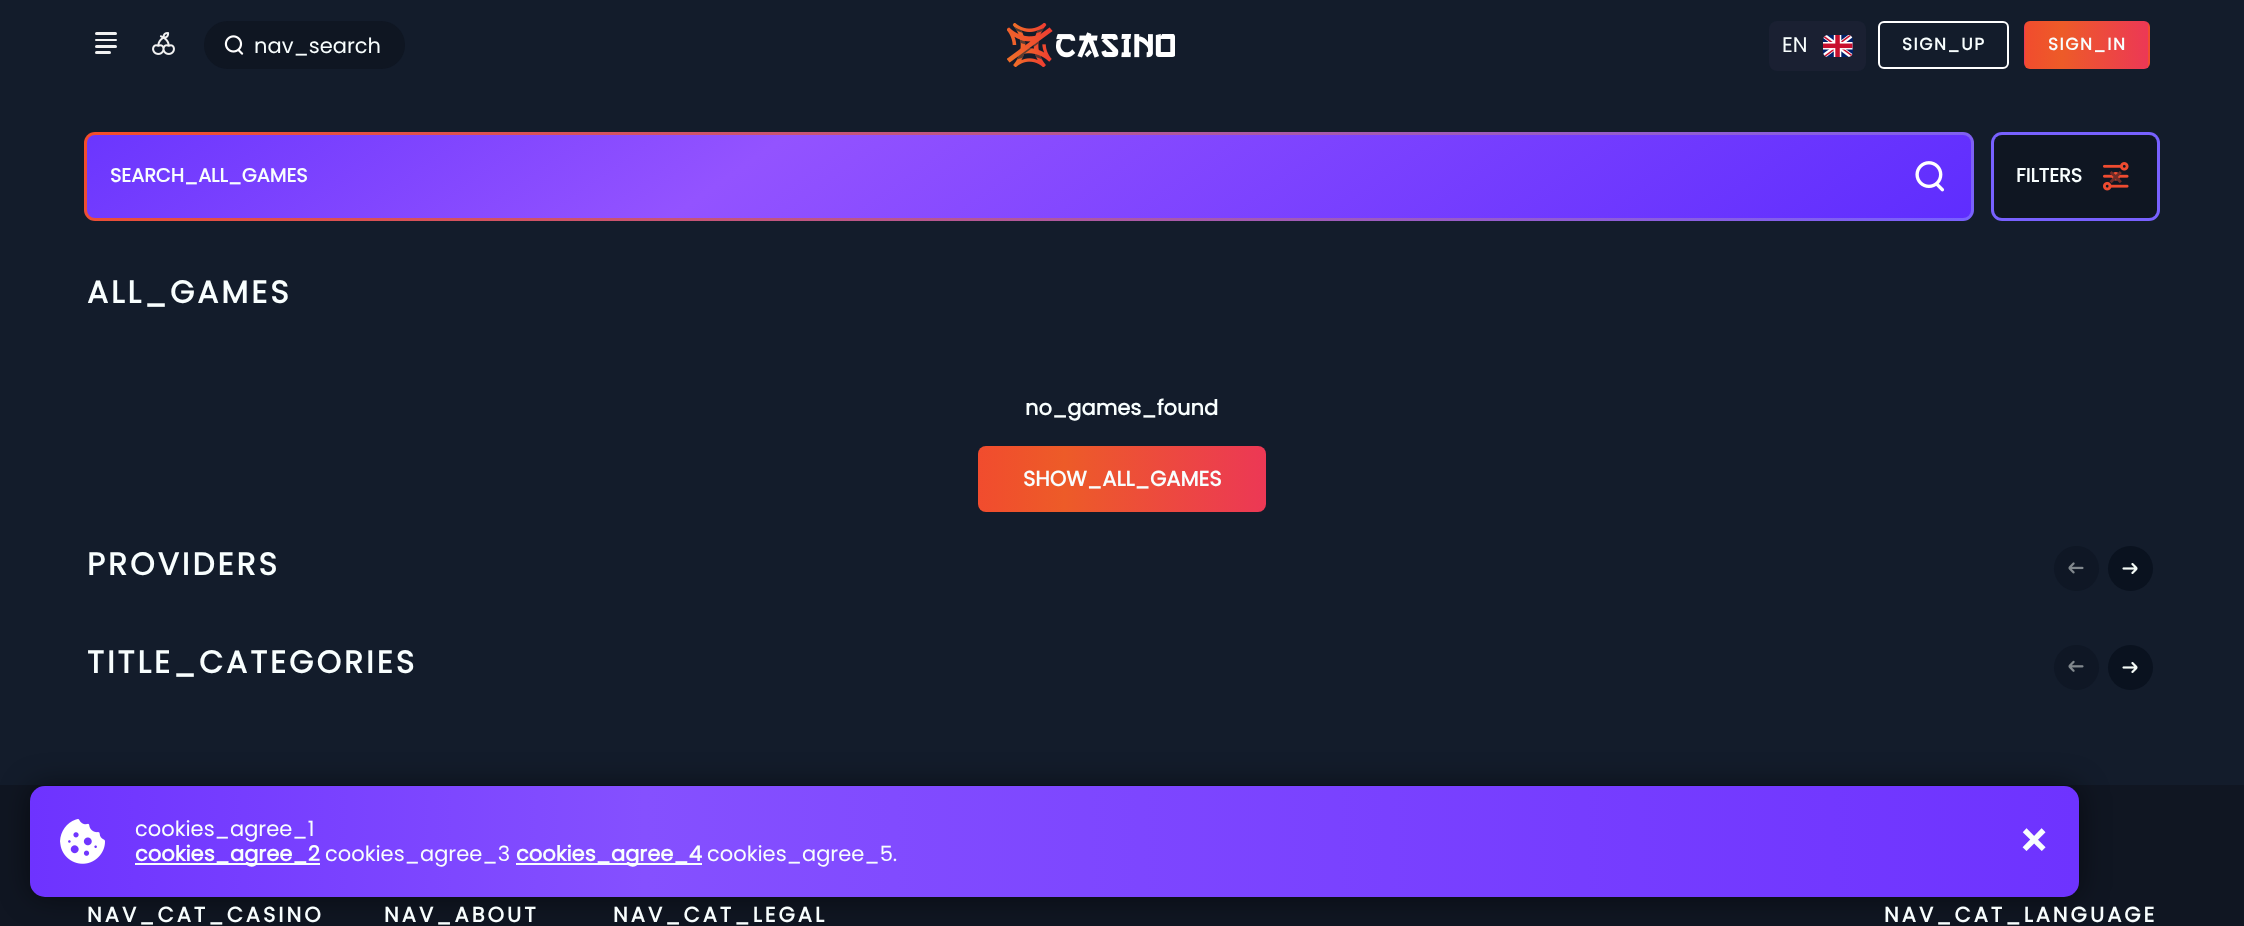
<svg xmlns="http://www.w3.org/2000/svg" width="2244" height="926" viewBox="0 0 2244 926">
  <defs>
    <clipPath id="clip1"><rect x="2024" y="21" width="126" height="48" rx="6"/></clipPath>
    <linearGradient id="g1" gradientUnits="userSpaceOnUse" x1="1902" y1="45" x2="2025" y2="45"><stop offset="0" stop-color="rgb(241,76,46)"/><stop offset="0.3" stop-color="rgb(237,91,40)"/><stop offset="1" stop-color="rgb(236,56,85)"/></linearGradient>
    <linearGradient id="g2" gradientUnits="userSpaceOnUse" x1="2025" y1="45" x2="2148" y2="45"><stop offset="0" stop-color="rgb(241,76,46)"/><stop offset="0.3" stop-color="rgb(237,91,40)"/><stop offset="1" stop-color="rgb(236,56,85)"/></linearGradient>
    <linearGradient id="g3" gradientUnits="userSpaceOnUse" x1="2148" y1="45" x2="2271" y2="45"><stop offset="0" stop-color="rgb(241,76,46)"/><stop offset="0.3" stop-color="rgb(237,91,40)"/><stop offset="1" stop-color="rgb(236,56,85)"/></linearGradient>
    <linearGradient id="g4" gradientUnits="userSpaceOnUse" x1="697" y1="-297" x2="1361" y2="650"><stop offset="0" stop-color="rgb(244,77,40)"/><stop offset="1" stop-color="rgb(120,97,255)"/></linearGradient>
    <linearGradient id="g5" gradientUnits="userSpaceOnUse" x1="700" y1="-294" x2="1358" y2="647"><stop offset="0" stop-color="rgb(107,54,254)"/><stop offset="0.35" stop-color="rgb(147,83,255)"/><stop offset="1" stop-color="rgb(95,45,254)"/></linearGradient>
    <linearGradient id="g6" gradientUnits="userSpaceOnUse" x1="978" y1="479" x2="1266" y2="479"><stop offset="0" stop-color="rgb(241,76,46)"/><stop offset="0.3" stop-color="rgb(237,91,40)"/><stop offset="1" stop-color="rgb(236,56,85)"/></linearGradient>
    <linearGradient id="g7" gradientUnits="userSpaceOnUse" x1="30" y1="842" x2="2079" y2="842"><stop offset="0" stop-color="rgb(110,51,255)"/><stop offset="0.3" stop-color="rgb(133,80,255)"/><stop offset="1" stop-color="rgb(110,51,255)"/></linearGradient>
  </defs>
  <rect width="100%" height="100%" fill="rgb(19,28,43)"/>
  <rect x="95" y="32" width="22" height="3" rx="1.5" fill="rgb(241,241,241)"/>
  <rect x="95" y="39" width="22" height="2" rx="1" fill="rgb(241,241,241)"/>
  <rect x="95" y="45" width="22" height="3" rx="1.5" fill="rgb(241,241,241)"/>
  <rect x="95" y="51" width="16" height="3" rx="1.5" fill="rgb(241,241,241)"/>
  <image x="152" y="32" width="23" height="23" href="pic1.png"/>
  <rect x="204" y="21" width="201" height="48" rx="24" fill="rgb(15,22,34)"/>
  <image x="224" y="35" width="20" height="20" href="pic2.png"/>
  <text x="254" y="53" font-family="Poppins" font-size="21" fill="rgb(248,254,254)">nav_search</text>
  <image x="1007" y="23" width="168" height="44" href="pic3.png"/>
  <rect x="1769" y="21" width="97" height="50" rx="8" fill="rgb(26,32,50)"/>
  <text x="1782" y="52" font-family="Poppins" font-size="21" fill="rgb(248,254,254)">EN</text>
  <image x="1823" y="35" width="30" height="22" href="pic4.png"/>
  <rect x="1879" y="22" width="129" height="46" rx="5" fill="none" stroke="rgb(255,255,255)" stroke-width="2"/>
  <text x="1902" y="50" font-family="Poppins" font-size="17" font-weight="bold" letter-spacing="1.5" fill="rgb(248,254,254)">SIGN_UP</text>
  <g clip-path="url(#clip1)">
    <rect x="2024" y="21" width="1" height="48" fill="url(#g1)"/>
    <rect x="2025" y="21" width="123" height="48" fill="url(#g2)"/>
    <rect x="2148" y="21" width="2" height="48" fill="url(#g3)"/>
  </g>
  <text x="2048" y="50" font-family="Poppins" font-size="17" font-weight="bold" letter-spacing="1.5" fill="rgb(248,254,254)">SIGN_IN</text>
  <rect x="84" y="132" width="1890" height="89" rx="11" fill="url(#g4)"/>
  <rect x="87" y="135" width="1884" height="83" rx="8" fill="url(#g5)"/>
  <text x="110" y="182" font-family="Poppins" font-size="19.25" font-weight="bold" fill="rgb(248,254,254)">SEARCH_ALL_GAMES</text>
  <image x="1915" y="161" width="30" height="31" href="pic5.png"/>
  <rect x="1991" y="132" width="169" height="89" rx="11" fill="rgb(120,97,255)"/>
  <rect x="1994" y="135" width="163" height="83" rx="8" fill="rgb(15,22,34)"/>
  <text x="2016" y="182" font-family="Poppins" font-size="19.25" font-weight="bold" fill="rgb(248,254,254)">FILTERS</text>
  <image x="2103" y="162" width="26" height="29" href="pic6.png"/>
  <text x="2107" y="187" font-family="Poppins" font-size="26" font-weight="bold" fill="rgb(111,45,40)">×</text>
  <text x="87" y="303" font-family="Poppins" font-size="31.25" font-weight="bold" letter-spacing="3" fill="rgb(248,254,254)">ALL_GAMES</text>
  <text x="1025" y="415" font-family="Poppins" font-size="21" font-weight="bold" fill="rgb(248,254,254)">no_games_found</text>
  <rect x="978" y="446" width="288" height="66" rx="8" fill="url(#g6)"/>
  <text x="1023" y="486" font-family="Poppins" font-size="21" font-weight="bold" fill="rgb(248,254,254)">SHOW_ALL_GAMES</text>
  <text x="87" y="575" font-family="Poppins" font-size="31.25" font-weight="bold" letter-spacing="3" fill="rgb(248,254,254)">PROVIDERS</text>
  <circle cx="2076.5" cy="568.5" r="22.5" fill="rgb(15,23,37)"/>
  <image x="2068" y="562" width="16" height="12" href="pic7.png"/>
  <circle cx="2130.5" cy="568.5" r="22.5" fill="rgb(10,18,31)"/>
  <image x="2122" y="563" width="16" height="11" href="pic8.png"/>
  <text x="87" y="673" font-family="Poppins" font-size="31.25" font-weight="bold" letter-spacing="3" fill="rgb(248,254,254)">TITLE_CATEGORIES</text>
  <circle cx="2076.5" cy="667.5" r="22.5" fill="rgb(15,23,37)"/>
  <image x="2068" y="660" width="16" height="12" href="pic9.png"/>
  <circle cx="2130.5" cy="667.5" r="22.5" fill="rgb(10,18,31)"/>
  <image x="2122" y="662" width="16" height="11" href="pic8.png"/>
  <rect x="0" y="785" width="2244" height="141" fill="rgb(16,22,34)"/>
  <rect x="30" y="786" width="2049" height="111" rx="15" fill="rgba(0,0,0,0.5)" filter="blur(15px)"/>
  <rect x="30" y="786" width="2049" height="111" rx="15" fill="url(#g7)"/>
  <image x="60" y="819" width="45" height="45" href="pic10.png"/>
  <text x="135" y="836" font-family="Poppins" font-size="21" fill="rgb(248,254,254)">cookies_agree_1</text>
  <rect x="135" y="863" width="185" height="2" fill="rgb(248,254,254)"/>
  <text x="135" y="861" font-family="Poppins" font-size="21" font-weight="bold" fill="rgb(248,254,254)">cookies_agree_2</text>
  <text x="325" y="861" font-family="Poppins" font-size="21" fill="rgb(248,254,254)">cookies_agree_3</text>
  <rect x="516" y="863" width="186" height="2" fill="rgb(248,254,254)"/>
  <text x="516" y="861" font-family="Poppins" font-size="21" font-weight="bold" fill="rgb(248,254,254)">cookies_agree_4</text>
  <text x="707" y="861" font-family="Poppins" font-size="21" fill="rgb(248,254,254)">cookies_agree_5.</text>
  <text x="2018" y="858" font-family="Poppins" font-size="48" font-weight="bold" fill="rgb(248,254,254)">×</text>
  <g font-family="Poppins" font-size="21" font-weight="bold" letter-spacing="3" fill="rgb(248,254,254)">
    <text x="87" y="922">NAV_CAT_CASINO</text>
    <text x="384" y="922">NAV_ABOUT</text>
    <text x="613" y="922">NAV_CAT_LEGAL</text>
    <text x="1884" y="922">NAV_CAT_LANGUAGE</text>
  </g>
</svg>
